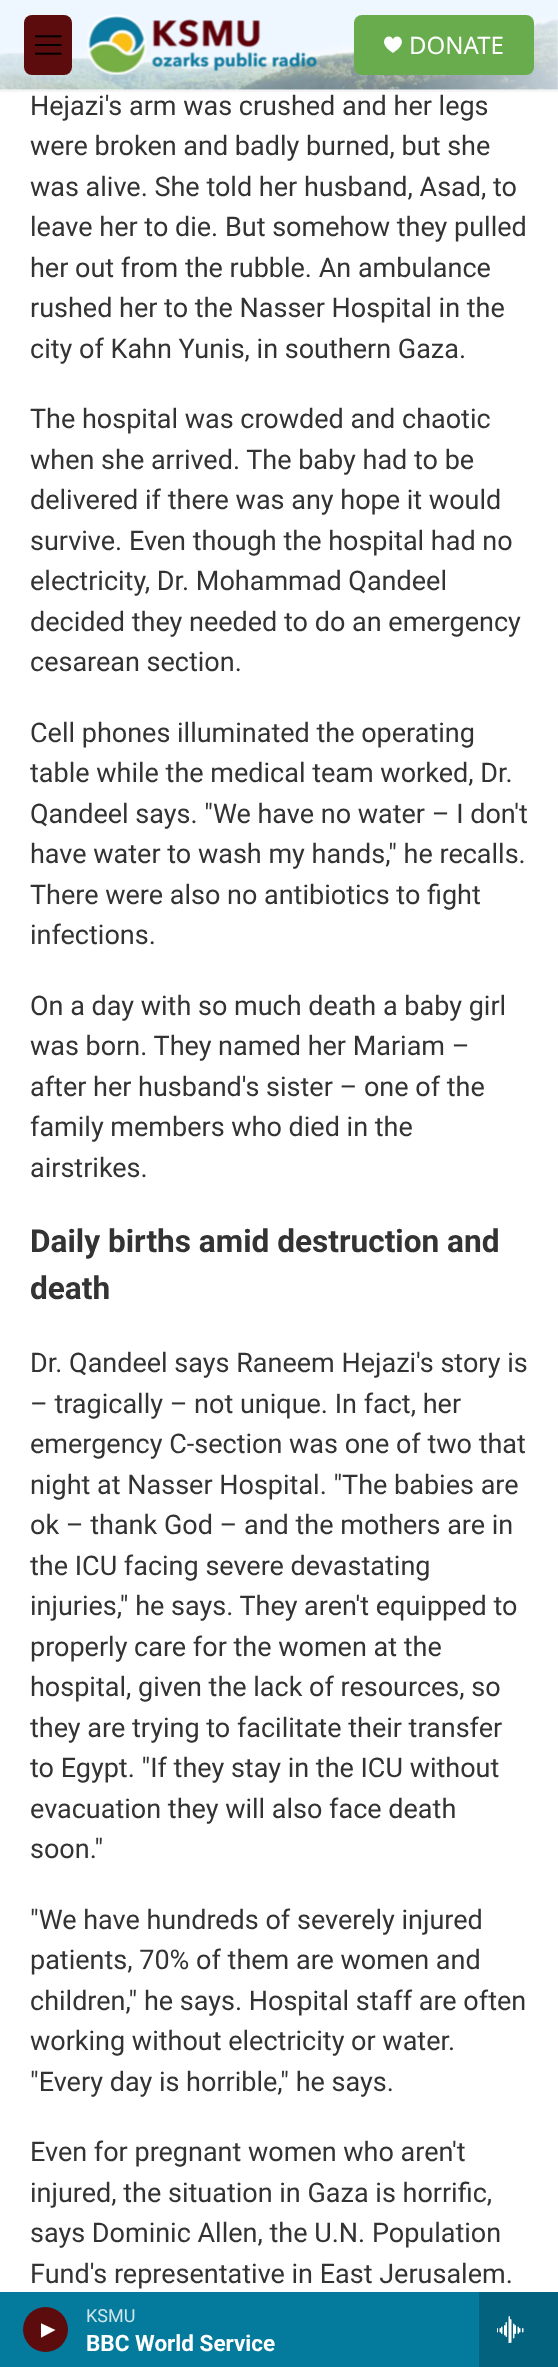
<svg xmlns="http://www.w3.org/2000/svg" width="558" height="2367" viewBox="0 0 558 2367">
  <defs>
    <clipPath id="clip1"><rect x="41" y="2322" width="15" height="17"/></clipPath>
  </defs>
  <rect width="100%" height="100%" fill="rgb(255,255,255)"/>
  <rect x="0" y="90" width="558" height="2" fill="rgb(245,245,245)"/>
  <image x="0" y="0" width="558" height="90" href="pic1.png"/>
  <rect x="24" y="15" width="48" height="60" rx="8" fill="rgb(92,12,12)"/>
  <image x="35" y="35" width="27" height="20" href="pic2.png"/>
  <image x="87" y="14" width="230" height="61" href="pic3.png"/>
  <rect x="354" y="15" width="180" height="60" rx="8" fill="rgb(104,172,77)"/>
  <path d="M393 39.5C390 31.5 374.5 41.5 393 53C411.5 41.5 396 31.5 393 39.5Z" fill="rgb(255,255,255)"/>
  <text x="409" y="54" font-family="Noto Sans" font-size="24" fill="rgb(255,255,255)">DONATE</text>
  <rect x="0" y="2292" width="479" height="75" fill="rgb(4,123,156)"/>
  <circle cx="45.5" cy="2329.5" r="22.5" fill="rgb(92,12,12)"/>
  <g clip-path="url(#clip1)">
    <path d="M40.5 2323L55.5 2330L40.5 2338Z" fill="rgb(255,255,255)"/>
  </g>
  <text x="86" y="2322" font-family="Roboto" font-size="18" fill="rgb(205,229,235)">KSMU</text>
  <text x="86" y="2351" font-family="Roboto" font-size="22.5" font-weight="bold" fill="rgb(255,255,255)">BBC World Service</text>
  <rect x="479" y="2292" width="79" height="75" fill="rgb(3,98,125)"/>
  <image x="497" y="2316" width="27" height="27" href="pic4.png"/>
  <g font-family="Roboto" font-size="27" fill="rgb(51,51,51)">
    <text>
      <tspan x="30" y="115">Hejazi's arm was crushed and her legs</tspan>
      <tspan x="30" y="155">were broken and badly burned, but she</tspan>
      <tspan x="30" y="196">was alive. She told her husband, Asad, to</tspan>
      <tspan x="30" y="236">leave her to die. But somehow they pulled</tspan>
      <tspan x="30" y="277">her out from the rubble. An ambulance</tspan>
      <tspan x="30" y="317">rushed her to the Nasser Hospital in the</tspan>
      <tspan x="30" y="358">city of Kahn Yunis, in southern Gaza.</tspan>
    </text>
    <text>
      <tspan x="30" y="428">The hospital was crowded and chaotic</tspan>
      <tspan x="30" y="469">when she arrived. The baby had to be</tspan>
      <tspan x="30" y="509">delivered if there was any hope it would</tspan>
      <tspan x="30" y="550">survive. Even though the hospital had no</tspan>
      <tspan x="30" y="590">electricity, Dr. Mohammad Qandeel</tspan>
      <tspan x="30" y="631">decided they needed to do an emergency</tspan>
      <tspan x="30" y="671">cesarean section.</tspan>
    </text>
    <text>
      <tspan x="30" y="742">Cell phones illuminated the operating</tspan>
      <tspan x="30" y="782">table while the medical team worked, Dr.</tspan>
      <tspan x="30" y="823">Qandeel says. "We have no water – I don't</tspan>
      <tspan x="30" y="863">have water to wash my hands," he recalls.</tspan>
      <tspan x="30" y="904">There were also no antibiotics to fight</tspan>
      <tspan x="30" y="944">infections.</tspan>
    </text>
    <text>
      <tspan x="30" y="1015">On a day with so much death a baby girl</tspan>
      <tspan x="30" y="1055">was born. They named her Mariam –</tspan>
      <tspan x="30" y="1096">after her husband's sister – one of the</tspan>
      <tspan x="30" y="1136">family members who died in the</tspan>
      <tspan x="30" y="1177">airstrikes.</tspan>
    </text>
  </g>
  <g font-family="Roboto" font-size="31.6" font-weight="bold" fill="rgb(51,51,51)">
    <text>
      <tspan x="30" y="1252">Daily births amid destruction and</tspan>
      <tspan x="30" y="1299">death</tspan>
    </text>
  </g>
  <g font-family="Roboto" font-size="27" fill="rgb(51,51,51)">
    <text>
      <tspan x="30" y="1372">Dr. Qandeel says Raneem Hejazi's story is</tspan>
      <tspan x="30" y="1413">– tragically – not unique. In fact, her</tspan>
      <tspan x="30" y="1453">emergency C-section was one of two that</tspan>
      <tspan x="30" y="1494">night at Nasser Hospital. "The babies are</tspan>
      <tspan x="30" y="1534">ok – thank God – and the mothers are in</tspan>
      <tspan x="30" y="1575">the ICU facing severe devastating</tspan>
      <tspan x="30" y="1615">injuries," he says. They aren't equipped to</tspan>
      <tspan x="30" y="1656">properly care for the women at the</tspan>
      <tspan x="30" y="1696">hospital, given the lack of resources, so</tspan>
      <tspan x="30" y="1737">they are trying to facilitate their transfer</tspan>
      <tspan x="30" y="1777">to Egypt. "If they stay in the ICU without</tspan>
      <tspan x="30" y="1818">evacuation they will also face death</tspan>
      <tspan x="30" y="1858">soon."</tspan>
    </text>
    <text>
      <tspan x="30" y="1929">"We have hundreds of severely injured</tspan>
      <tspan x="30" y="1969">patients, 70% of them are women and</tspan>
      <tspan x="30" y="2010">children," he says. Hospital staff are often</tspan>
      <tspan x="30" y="2050">working without electricity or water.</tspan>
      <tspan x="30" y="2091">"Every day is horrible," he says.</tspan>
    </text>
    <text>
      <tspan x="30" y="2161">Even for pregnant women who aren't</tspan>
      <tspan x="30" y="2202">injured, the situation in Gaza is horrific,</tspan>
      <tspan x="30" y="2242">says Dominic Allen, the U.N. Population</tspan>
      <tspan x="30" y="2283">Fund's representative in East Jerusalem.</tspan>
    </text>
  </g>
</svg>
